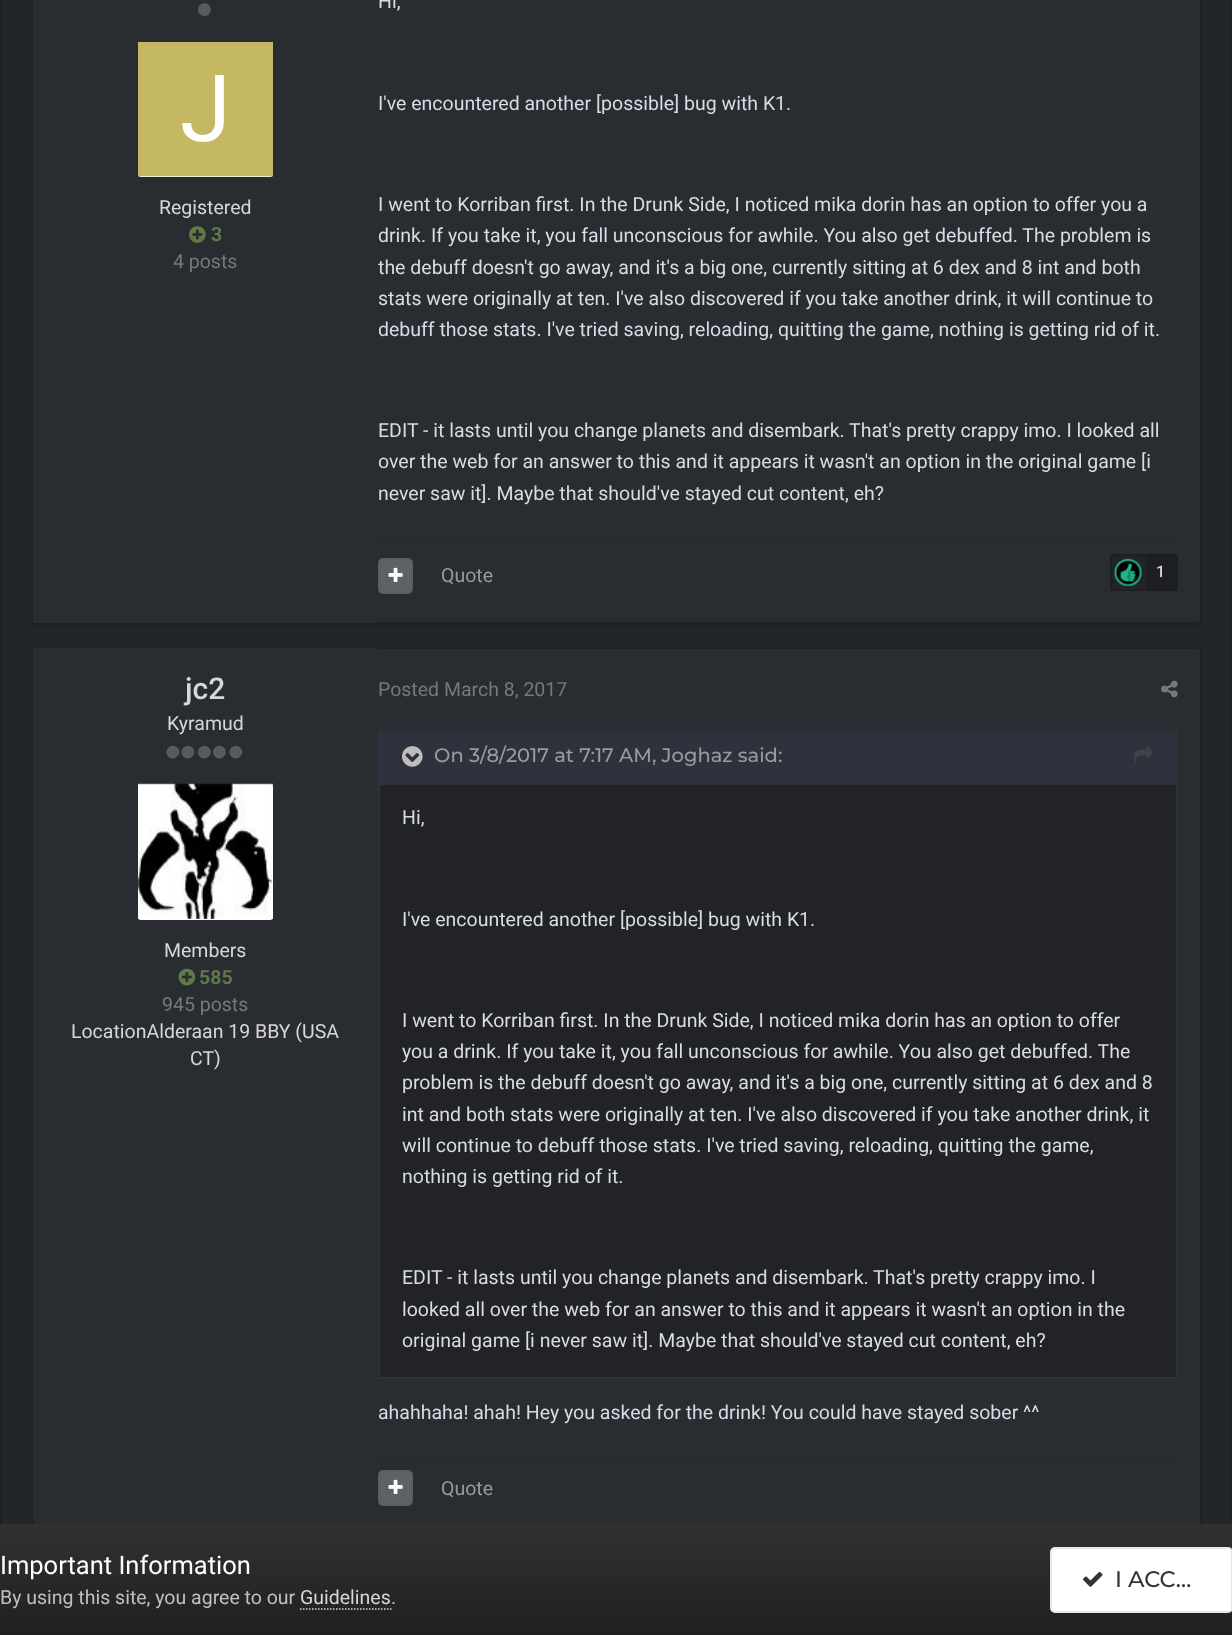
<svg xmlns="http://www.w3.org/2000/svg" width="1232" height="1635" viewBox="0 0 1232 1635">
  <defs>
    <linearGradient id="g1" gradientUnits="userSpaceOnUse" x1="617" y1="1524" x2="617" y2="1635"><stop offset="0" stop-color="rgb(49,49,49)"/><stop offset="1" stop-color="rgb(32,32,32)"/></linearGradient>
  </defs>
  <rect width="100%" height="100%" fill="rgb(34,37,42)"/>
  <rect x="1" y="-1" width="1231" height="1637" fill="none" stroke="rgb(30,31,34)" stroke-width="2"/>
  <path d="M32 622C32 624 34 626 37 626H1197C1200 626 1202 624 1202 621V-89V-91V620C1202 622 1199 624 1197 624H36C34 624 33 623 32 622Z" fill="rgb(31,33,38)"/>
  <rect x="33" y="-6" width="1168" height="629" rx="4" fill="rgb(41,44,49)" stroke="rgb(31,32,37)" stroke-width="2"/>
  <rect x="33" y="0" width="345" height="623" fill="rgb(41,44,49)"/>
  <image x="198" y="3" width="13" height="13" href="pic1.png"/>
  <rect x="138" y="42" width="135" height="135" rx="3" fill="rgb(255,255,255)"/>
  <image x="138" y="42" width="135" height="135" href="pic2.png"/>
  <text x="159" y="214" font-family="Roboto" font-size="19.5" fill="rgb(215,215,215)">Registered</text>
  <image x="189" y="226" width="17" height="17" href="pic3.png"/>
  <text x="211" y="241" font-family="Roboto" font-size="19.5" font-weight="bold" fill="rgb(95,122,71)">3</text>
  <text x="173" y="268" font-family="Roboto" font-size="19.5" fill="rgb(117,121,124)">4 posts</text>
  <g font-family="Roboto" font-size="19.5" fill="rgb(217,220,228)">
    <text x="378" y="8">Hi,</text>
    <text x="378" y="110">I've encountered another [possible] bug with K1.</text>
    <text>
      <tspan x="378" y="211">I went to Korriban first. In the Drunk Side, I noticed mika dorin has an option to offer you a</tspan>
      <tspan x="378" y="242">drink. If you take it, you fall unconscious for awhile. You also get debuffed. The problem is</tspan>
      <tspan x="378" y="274">the debuff doesn't go away, and it's a big one, currently sitting at 6 dex and 8 int and both</tspan>
      <tspan x="378" y="305">stats were originally at ten. I've also discovered if you take another drink, it will continue to</tspan>
      <tspan x="378" y="336">debuff those stats. I've tried saving, reloading, quitting the game, nothing is getting rid of it.</tspan>
    </text>
    <text>
      <tspan x="378" y="437">EDIT - it lasts until you change planets and disembark. That's pretty crappy imo. I looked all</tspan>
      <tspan x="378" y="468">over the web for an answer to this and it appears it wasn't an option in the original game [i</tspan>
      <tspan x="378" y="500">never saw it]. Maybe that should've stayed cut content, eh?</tspan>
    </text>
  </g>
  <rect x="378" y="540" width="800" height="2" fill="rgb(38,41,45)"/>
  <rect x="378" y="558" width="35" height="36" rx="5" fill="rgb(94,97,102)"/>
  <rect x="379" y="559" width="33" height="34" fill="none" stroke="rgba(0,0,0,0.03)" stroke-width="2"/>
  <image x="388" y="567" width="15" height="15" href="pic4.png"/>
  <text x="441" y="582" font-family="Roboto" font-size="19.5" fill="rgb(154,154,154)">Quote</text>
  <rect x="1110" y="554" width="68" height="37" rx="3" fill="rgb(33,35,39)"/>
  <rect x="1111" y="555" width="66" height="35" rx="2" fill="none" stroke="rgba(0,0,0,0.1)" stroke-width="2"/>
  <image x="1114" y="558" width="28" height="28" href="pic5.png"/>
  <rect x="1146" y="555" width="30" height="35" fill="rgba(0,0,0,0.1)"/>
  <text x="1156" y="577" font-family="Roboto" font-size="16" font-weight="500" fill="rgb(215,215,215)">1</text>
  <rect x="33" y="648" width="1168" height="881" rx="4" fill="rgb(41,44,49)" stroke="rgb(31,32,37)" stroke-width="2"/>
  <rect x="33" y="648" width="345" height="876" fill="rgb(41,44,49)"/>
  <text x="185" y="699" font-family="Roboto" font-size="30" font-weight="500" fill="rgb(215,215,215)">jc2</text>
  <text x="167" y="730" font-family="Roboto" font-size="19.5" fill="rgb(215,215,215)">Kyramud</text>
  <path d="M178.5 749C182.5 756 171.5 762.5 167.5 755.5C163 748 174 741.5 178.5 749ZM193.5 749C197.5 756 186.5 762.5 182.5 755.5C178 748 189 741.5 193.5 749ZM210 749C214 756 203 762.5 199 755.5C194.5 748 205.5 741.5 210 749ZM225 749C229 756 218 762.5 214 755.5C209.5 748 220.5 741.5 225 749Z" fill="rgb(90,90,90)"/>
  <path d="M241.5 749C245.5 756 234.5 762.5 230.5 755.5C226 748 237 741.5 241.5 749Z" fill="rgb(90,90,90)"/>
  <rect x="138" y="785" width="135" height="135" rx="3" fill="rgb(255,255,255)"/>
  <image x="138" y="783" width="135" height="136" href="pic6.png"/>
  <text x="164" y="957" font-family="Roboto" font-size="19.5" fill="rgb(215,215,215)">Members</text>
  <image x="178" y="968" width="18" height="18" href="pic7.png"/>
  <text x="199" y="984" font-family="Roboto" font-size="19.5" font-weight="bold" fill="rgb(95,122,71)">585</text>
  <text x="162" y="1011" font-family="Roboto" font-size="19.5" fill="rgb(117,121,124)">945 posts</text>
  <g font-family="Roboto" font-size="19.5" fill="rgb(215,215,215)">
    <text x="71" y="1038">LocationAlderaan 19 BBY (USA</text>
    <text x="190" y="1065">CT)</text>
  </g>
  <text x="378" y="696" font-family="Roboto" font-size="19.5" fill="rgb(117,121,124)">Posted March 8, 2017</text>
  <image x="1161" y="680" width="17" height="18" href="pic8.png"/>
  <rect x="380" y="785" width="796" height="592" fill="rgb(33,35,39)"/>
  <rect x="1176" y="731" width="2" height="648" fill="rgb(47,50,60)"/>
  <rect x="378" y="1377" width="800" height="2" fill="rgb(47,50,60)"/>
  <rect x="378" y="731" width="2" height="648" fill="rgb(47,50,60)"/>
  <rect x="380" y="731" width="796" height="54" fill="rgb(47,50,60)"/>
  <image x="402" y="746" width="21" height="21" href="pic9.png"/>
  <text x="434" y="762" font-family="Montserrat" font-size="19.5" font-weight="500" fill="rgb(154,154,154)">On 3/8/2017 at 7:17 AM, Joghaz said:</text>
  <image x="1134" y="746" width="20" height="17" href="pic10.png"/>
  <g font-family="Roboto" font-size="19.5" fill="rgb(217,220,228)">
    <text x="402" y="824">Hi,</text>
    <text x="402" y="926">I've encountered another [possible] bug with K1.</text>
    <text>
      <tspan x="402" y="1027">I went to Korriban first. In the Drunk Side, I noticed mika dorin has an option to offer</tspan>
      <tspan x="402" y="1058">you a drink. If you take it, you fall unconscious for awhile. You also get debuffed. The</tspan>
      <tspan x="402" y="1089">problem is the debuff doesn't go away, and it's a big one, currently sitting at 6 dex and 8</tspan>
      <tspan x="402" y="1121">int and both stats were originally at ten. I've also discovered if you take another drink, it</tspan>
      <tspan x="402" y="1152">will continue to debuff those stats. I've tried saving, reloading, quitting the game,</tspan>
      <tspan x="402" y="1183">nothing is getting rid of it.</tspan>
    </text>
    <text>
      <tspan x="402" y="1284">EDIT - it lasts until you change planets and disembark. That's pretty crappy imo. I</tspan>
      <tspan x="402" y="1316">looked all over the web for an answer to this and it appears it wasn't an option in the</tspan>
      <tspan x="402" y="1347">original game [i never saw it]. Maybe that should've stayed cut content, eh?</tspan>
    </text>
    <text x="378" y="1419">ahahhaha! ahah! Hey you asked for the drink! You could have stayed sober ^^</text>
  </g>
  <rect x="378" y="1458" width="800" height="2" fill="rgb(38,41,45)"/>
  <rect x="378" y="1470" width="35" height="36" rx="5" fill="rgb(94,97,102)"/>
  <rect x="379" y="1471" width="33" height="34" fill="none" stroke="rgba(0,0,0,0.03)" stroke-width="2"/>
  <image x="388" y="1479" width="15" height="15" href="pic4.png"/>
  <text x="441" y="1495" font-family="Roboto" font-size="19.5" fill="rgb(154,154,154)">Quote</text>
  <rect x="0" y="1524" width="1232" height="111" fill="url(#g1)"/>
  <text x="0" y="1574" font-family="Roboto" font-size="25.5" fill="rgb(255,255,255)">Important Information</text>
  <text x="0" y="1604" font-family="Roboto" font-size="19.5" fill="rgb(192,192,192)">By using this site, you agree to our</text>
  <text x="300" y="1604" font-family="Roboto" font-size="19.5" fill="rgb(215,215,215)">Guidelines</text>
  <path d="M300 1609H391.5" fill="none" stroke="rgb(218,218,218)" stroke-width="1.5" stroke-dasharray="1.5 1.5"/>
  <text x="391" y="1604" font-family="Roboto" font-size="19.5" fill="rgb(192,192,192)">.</text>
  <rect x="1051" y="1548" width="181" height="64" rx="4" fill="rgb(255,255,255)" stroke="rgb(232,232,232)" stroke-width="2"/>
  <image x="1083" y="1571" width="20" height="16" href="pic11.png"/>
  <text x="1115" y="1587" font-family="Montserrat" font-size="22.5" font-weight="500" fill="rgb(51,51,51)">I ACC…</text>
</svg>
